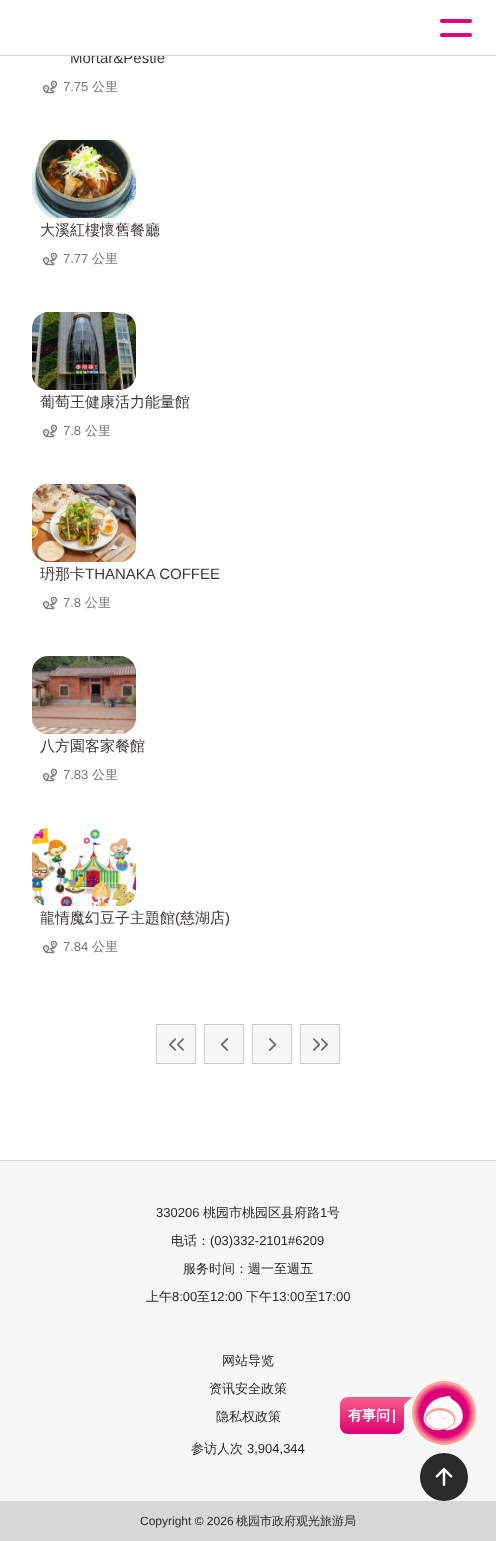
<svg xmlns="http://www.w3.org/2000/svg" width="496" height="1541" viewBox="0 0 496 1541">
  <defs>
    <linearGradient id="g1" gradientUnits="userSpaceOnUse" x1="372" y1="1397" x2="372" y2="1434"><stop offset="0" stop-color="rgb(252,94,138)"/><stop offset="1" stop-color="rgb(220,1,117)"/></linearGradient>
    <radialGradient id="g2" gradientUnits="userSpaceOnUse" cx="444" cy="1413" r="32"><stop offset="0.75" stop-color="rgb(220,1,117)"/><stop offset="0.95" stop-color="rgb(254,162,154)"/></radialGradient>
  </defs>
  <rect width="100%" height="100%" fill="rgb(255,255,255)"/>
  <rect x="440" y="19" width="32" height="4" rx="2" fill="rgb(220,1,117)"/>
  <rect x="440" y="33" width="32" height="4" rx="2" fill="rgb(220,1,117)"/>
  <text x="70" y="63" font-family="Liberation Sans" font-size="15" fill="rgb(62,58,57)">Mortar&amp;Pestle</text>
  <rect x="0" y="55" width="496" height="1" fill="rgb(215,215,215)"/>
  <rect x="71" y="52" width="90" height="3" fill="rgb(255,255,255)"/>
  <image x="42" y="80" width="16" height="14" href="pic1.png"/>
  <text x="63" y="91" font-family="Liberation Sans" font-size="13" fill="rgb(118,118,118)">7.75</text>
  <text x="92" y="91" font-family="WenQuanYi Zen Hei" font-size="13" font-weight="500" fill="rgb(118,118,118)">公里</text>
  <rect x="32" y="140" width="104" height="78" rx="16" fill="rgb(230,230,230)"/>
  <image x="32" y="140" width="104" height="78" href="pic2.png"/>
  <text x="40" y="235" font-family="WenQuanYi Zen Hei" font-size="15" font-weight="500" fill="rgb(62,58,57)">大溪紅樓懷舊餐廳</text>
  <image x="42" y="252" width="16" height="14" href="pic1.png"/>
  <text x="63" y="263" font-family="Liberation Sans" font-size="13" fill="rgb(118,118,118)">7.77</text>
  <text x="92" y="263" font-family="WenQuanYi Zen Hei" font-size="13" font-weight="500" fill="rgb(118,118,118)">公里</text>
  <rect x="32" y="312" width="104" height="78" rx="16" fill="rgb(230,230,230)"/>
  <image x="32" y="312" width="104" height="78" href="pic3.png"/>
  <text x="40" y="407" font-family="WenQuanYi Zen Hei" font-size="15" font-weight="500" fill="rgb(62,58,57)">葡萄王健康活力能量館</text>
  <image x="42" y="424" width="16" height="14" href="pic1.png"/>
  <text x="63" y="435" font-family="Liberation Sans" font-size="13" fill="rgb(118,118,118)">7.8</text>
  <text x="85" y="435" font-family="WenQuanYi Zen Hei" font-size="13" font-weight="500" fill="rgb(118,118,118)">公里</text>
  <rect x="32" y="484" width="104" height="78" rx="16" fill="rgb(230,230,230)"/>
  <image x="32" y="484" width="104" height="78" href="pic4.png"/>
  <text x="40" y="579" font-family="WenQuanYi Zen Hei" font-size="15" font-weight="500" fill="rgb(62,58,57)">玬那卡</text>
  <text x="85" y="579" font-family="Liberation Sans" font-size="15" fill="rgb(62,58,57)">THANAKA COFFEE</text>
  <image x="42" y="596" width="16" height="14" href="pic1.png"/>
  <text x="63" y="607" font-family="Liberation Sans" font-size="13" fill="rgb(118,118,118)">7.8</text>
  <text x="85" y="607" font-family="WenQuanYi Zen Hei" font-size="13" font-weight="500" fill="rgb(118,118,118)">公里</text>
  <rect x="32" y="656" width="104" height="78" rx="16" fill="rgb(230,230,230)"/>
  <image x="32" y="656" width="104" height="78" href="pic5.png"/>
  <text x="40" y="751" font-family="WenQuanYi Zen Hei" font-size="15" font-weight="500" fill="rgb(62,58,57)">八方園客家餐館</text>
  <image x="42" y="768" width="16" height="14" href="pic1.png"/>
  <text x="63" y="779" font-family="Liberation Sans" font-size="13" fill="rgb(118,118,118)">7.83</text>
  <text x="92" y="779" font-family="WenQuanYi Zen Hei" font-size="13" font-weight="500" fill="rgb(118,118,118)">公里</text>
  <rect x="32" y="828" width="104" height="78" rx="16" fill="rgb(230,230,230)"/>
  <image x="32" y="828" width="104" height="78" href="pic6.png"/>
  <text x="40" y="923" font-family="WenQuanYi Zen Hei" font-size="15" font-weight="500" fill="rgb(62,58,57)">龍情魔幻豆子主題館</text>
  <text x="175" y="923" font-family="Liberation Sans" font-size="15" fill="rgb(62,58,57)">(</text>
  <text x="180" y="923" font-family="WenQuanYi Zen Hei" font-size="15" font-weight="500" fill="rgb(62,58,57)">慈湖店</text>
  <text x="225" y="923" font-family="Liberation Sans" font-size="15" fill="rgb(62,58,57)">)</text>
  <image x="42" y="940" width="16" height="14" href="pic1.png"/>
  <text x="63" y="951" font-family="Liberation Sans" font-size="13" fill="rgb(118,118,118)">7.84</text>
  <text x="92" y="951" font-family="WenQuanYi Zen Hei" font-size="13" font-weight="500" fill="rgb(118,118,118)">公里</text>
  <rect x="156.5" y="1024.5" width="39" height="39" fill="rgb(247,247,247)" stroke="rgb(204,204,204)"/>
  <image x="169" y="1038" width="15" height="13" href="pic7.png"/>
  <rect x="204.5" y="1024.5" width="39" height="39" fill="rgb(247,247,247)" stroke="rgb(204,204,204)"/>
  <image x="220" y="1038" width="9" height="13" href="pic8.png"/>
  <rect x="252.5" y="1024.5" width="39" height="39" fill="rgb(247,247,247)" stroke="rgb(204,204,204)"/>
  <image x="268" y="1038" width="9" height="13" href="pic9.png"/>
  <rect x="300.5" y="1024.5" width="39" height="39" fill="rgb(247,247,247)" stroke="rgb(204,204,204)"/>
  <image x="313" y="1038" width="15" height="13" href="pic10.png"/>
  <rect x="0" y="1161" width="496" height="340" fill="rgb(247,247,247)"/>
  <rect x="0" y="1160" width="496" height="1" fill="rgb(215,215,215)"/>
  <text x="156" y="1217" font-family="Liberation Sans" font-size="13" fill="rgb(42,42,42)">330206</text>
  <text x="203" y="1217" font-family="WenQuanYi Zen Hei" font-size="13" font-weight="500" fill="rgb(42,42,42)">桃园市桃园区县府路</text>
  <text x="320" y="1217" font-family="Liberation Sans" font-size="13" fill="rgb(42,42,42)">1</text>
  <g font-family="WenQuanYi Zen Hei" font-size="13" font-weight="500" fill="rgb(42,42,42)">
    <text x="327" y="1217">号</text>
    <text x="171" y="1245">电话：</text>
  </g>
  <text x="210" y="1245" font-family="Liberation Sans" font-size="13" fill="rgb(42,42,42)">(03)332-2101#6209</text>
  <g font-family="WenQuanYi Zen Hei" font-size="13" font-weight="500" fill="rgb(42,42,42)">
    <text x="183" y="1273">服务时间：週一至週五</text>
    <text x="146" y="1301">上午</text>
  </g>
  <text x="172" y="1301" font-family="Liberation Sans" font-size="13" fill="rgb(42,42,42)">8:00</text>
  <text x="197" y="1301" font-family="WenQuanYi Zen Hei" font-size="13" font-weight="500" fill="rgb(42,42,42)">至</text>
  <text x="210" y="1301" font-family="Liberation Sans" font-size="13" fill="rgb(42,42,42)">12:00</text>
  <text x="246" y="1301" font-family="WenQuanYi Zen Hei" font-size="13" font-weight="500" fill="rgb(42,42,42)">下午</text>
  <text x="272" y="1301" font-family="Liberation Sans" font-size="13" fill="rgb(42,42,42)">13:00</text>
  <text x="305" y="1301" font-family="WenQuanYi Zen Hei" font-size="13" font-weight="500" fill="rgb(42,42,42)">至</text>
  <text x="318" y="1301" font-family="Liberation Sans" font-size="13" fill="rgb(42,42,42)">17:00</text>
  <g font-family="WenQuanYi Zen Hei" font-size="13" font-weight="500" fill="rgb(42,42,42)">
    <text x="222" y="1365">网站导览</text>
    <text x="209" y="1393">资讯安全政策</text>
    <text x="216" y="1421">隐私权政策</text>
    <text x="191" y="1453">参访人次</text>
  </g>
  <text x="247" y="1453" font-family="Liberation Sans" font-size="13" fill="rgb(42,42,42)">3,904,344</text>
  <rect x="0" y="1501" width="496" height="40" fill="rgb(215,215,215)"/>
  <text x="140" y="1525" font-family="Liberation Sans" font-size="12" fill="rgb(42,42,42)">Copyright © 2026</text>
  <text x="236" y="1525" font-family="WenQuanYi Zen Hei" font-size="12" font-weight="500" fill="rgb(42,42,42)">桃园市政府观光旅游局</text>
  <path d="M412 1397H404V1405Z" fill="rgb(252,94,138)"/>
  <path d="M348 1397H404V1426C404 1430.5 400.5 1434 396 1434H348C343.5 1434 340 1430.5 340 1426V1405C340 1400.5 343.5 1397 348 1397Z" fill="url(#g1)"/>
  <text x="348" y="1420" font-family="WenQuanYi Zen Hei" font-size="14" font-weight="bold" fill="rgb(255,255,255)">有事问</text>
  <text x="392" y="1420" font-family="Liberation Sans" font-size="14" font-weight="bold" fill="rgb(255,255,255)">|</text>
  <circle cx="444" cy="1413" r="32" fill="url(#g2)"/>
  <image x="423" y="1396" width="40" height="35" href="pic11.png"/>
  <circle cx="444" cy="1477" r="24" fill="rgb(42,42,42)"/>
  <image x="435" y="1468" width="18" height="18" href="pic12.png"/>
</svg>
